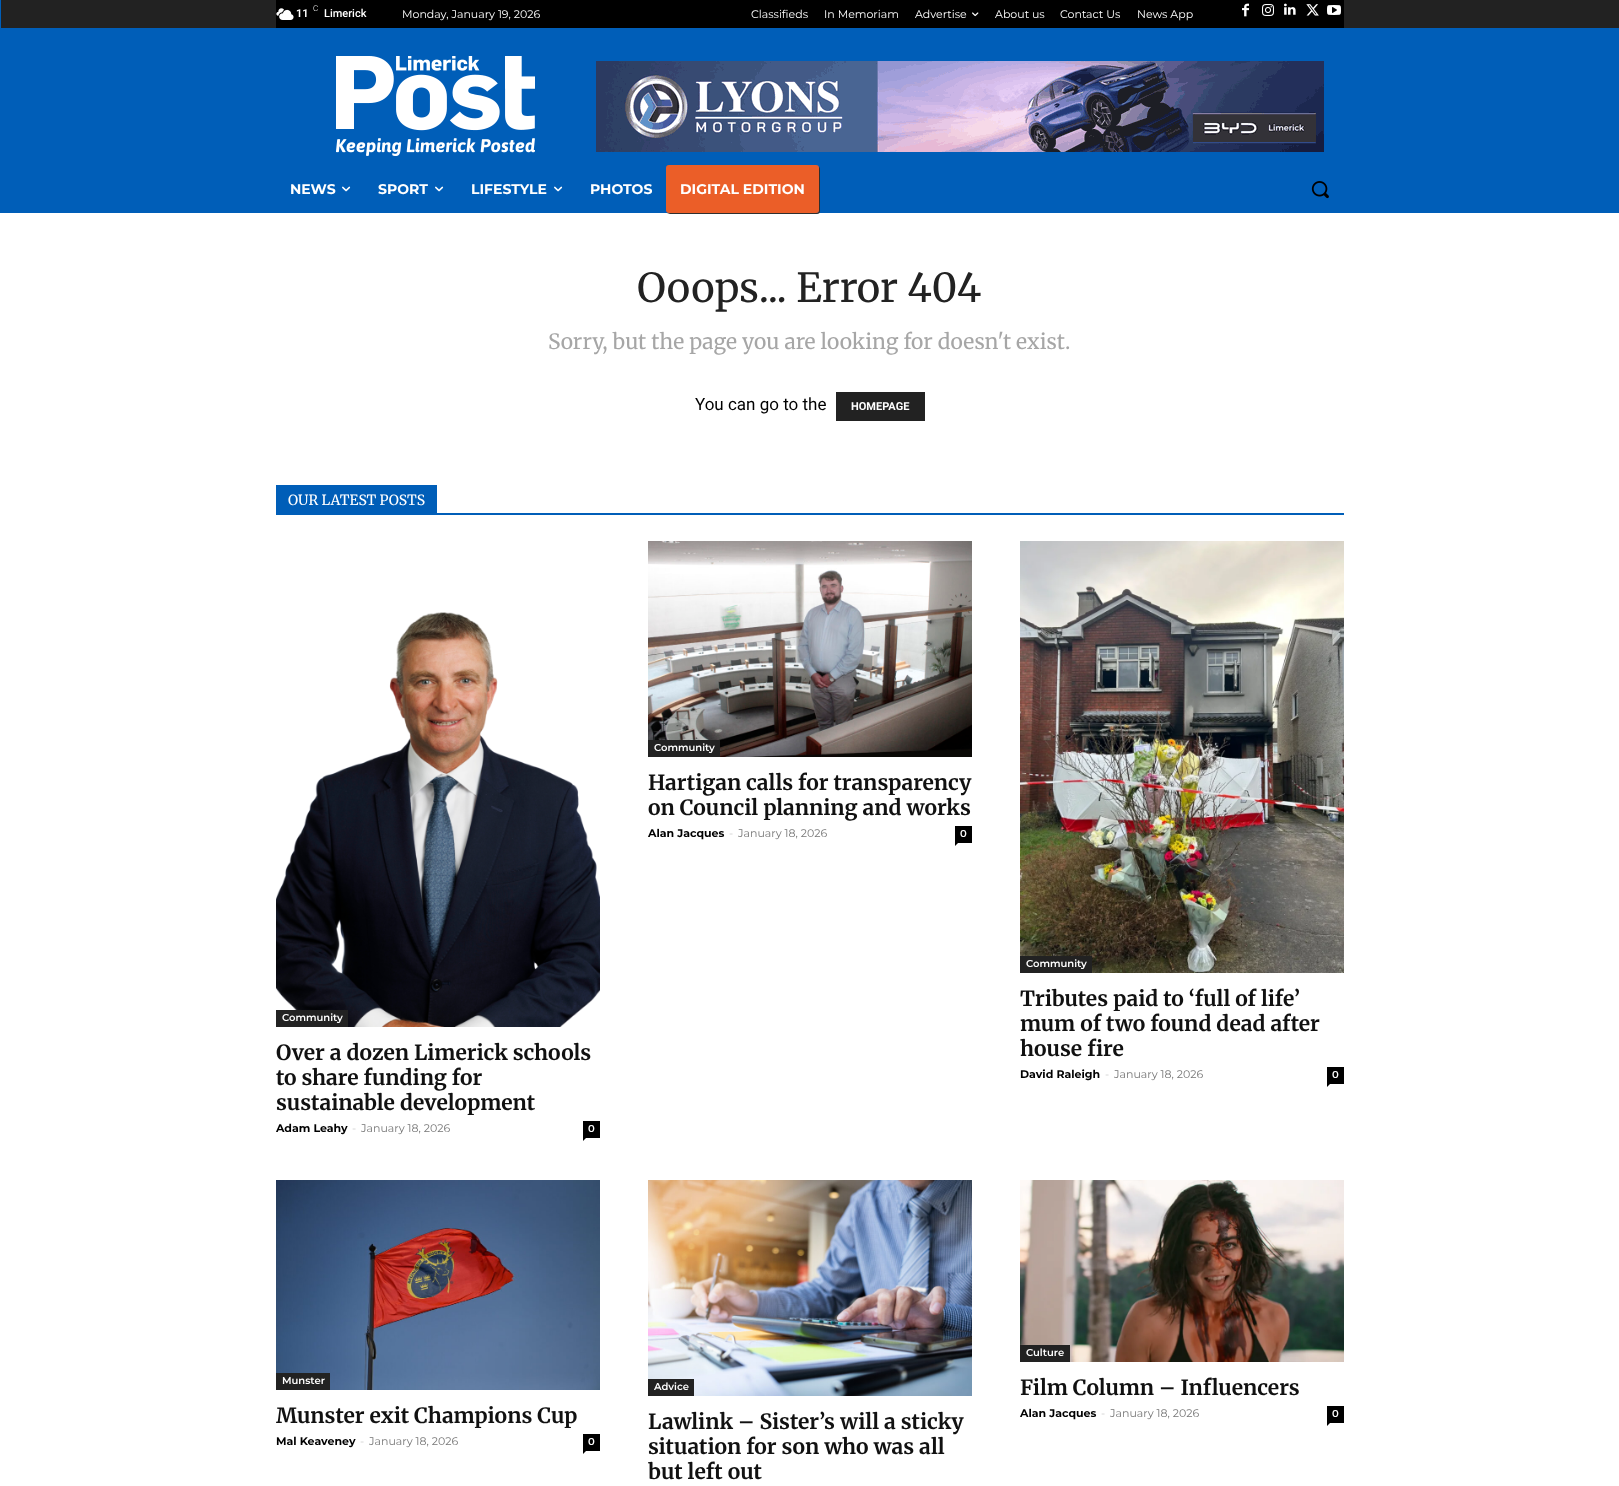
<svg xmlns="http://www.w3.org/2000/svg" width="1619" height="1486" viewBox="0 0 1619 1486">
  <rect width="100%" height="100%" fill="rgb(255,255,255)"/>
  <rect x="0" y="0" width="1619" height="213" fill="rgb(0,94,184)"/>
  <rect x="1" y="0" width="1618" height="28" fill="rgb(34,34,34)"/>
  <rect x="276" y="0" width="1068" height="28" fill="rgb(0,0,0)"/>
  <image x="276" y="8" width="18" height="12" href="pic1.png"/>
  <text x="296" y="17" font-family="Roboto" font-size="11" font-weight="600" fill="rgb(255,255,255)">11</text>
  <text x="313" y="11" font-family="Roboto" font-size="8" font-weight="300" fill="rgb(255,255,255)">C</text>
  <text x="324" y="17" font-family="Roboto" font-size="11" font-weight="500" fill="rgb(255,255,255)">Limerick</text>
  <g font-family="Montserrat" font-size="11" fill="rgb(255,255,255)">
    <text x="402" y="18">Monday, January 19, 2026</text>
    <text x="751" y="18">Classifieds</text>
    <text x="824" y="18">In Memoriam</text>
    <text x="915" y="18">Advertise</text>
  </g>
  <image x="972" y="12" width="7" height="5" href="pic2.png"/>
  <g font-family="Montserrat" font-size="11" fill="rgb(255,255,255)">
    <text x="995" y="18">About us</text>
    <text x="1060" y="18">Contact Us</text>
    <text x="1137" y="18">News App</text>
  </g>
  <image x="1242" y="3" width="7" height="14" href="pic3.png"/>
  <image x="1262" y="4" width="12" height="12" href="pic4.png"/>
  <image x="1284" y="3" width="12" height="12" href="pic5.png"/>
  <image x="1306" y="4" width="13" height="12" href="pic6.png"/>
  <image x="1327" y="5" width="14" height="10" href="pic7.png"/>
  <image x="336" y="56" width="199" height="100" href="pic8.png"/>
  <image x="596" y="61" width="728" height="91" href="pic9.png"/>
  <text x="290" y="194" font-family="Montserrat" font-size="14" font-weight="bold" fill="rgb(255,255,255)">NEWS</text>
  <image x="342" y="186" width="9" height="6" href="pic10.png"/>
  <text x="378" y="194" font-family="Montserrat" font-size="14" font-weight="bold" fill="rgb(255,255,255)">SPORT</text>
  <image x="435" y="186" width="9" height="6" href="pic10.png"/>
  <text x="471" y="194" font-family="Montserrat" font-size="14" font-weight="bold" fill="rgb(255,255,255)">LIFESTYLE</text>
  <image x="554" y="186" width="9" height="6" href="pic10.png"/>
  <text x="590" y="194" font-family="Montserrat" font-size="14" font-weight="bold" fill="rgb(255,255,255)">PHOTOS</text>
  <path d="M667 213C668 213 669 214 670 214H817C819 214 820 213 820 211V169C820 168 819 167 819 166V168V210C819 212 818 213 816 213H669Z" fill="rgb(47,47,47)"/>
  <rect x="666" y="165" width="153" height="48" rx="3" fill="rgb(235,94,40)"/>
  <text x="680" y="194" font-family="Montserrat" font-size="14" font-weight="bold" fill="rgb(255,255,255)">DIGITAL EDITION</text>
  <image x="1311" y="181" width="18" height="18" href="pic11.png"/>
  <text x="637" y="302" font-family="Merriweather" font-size="40" fill="rgb(34,34,34)">Ooops... Error 404</text>
  <text x="548" y="349" font-family="Merriweather" font-size="21" fill="rgb(166,166,166)">Sorry, but the page you are looking for doesn't exist.</text>
  <text x="695" y="410" font-family="Roboto" font-size="17" fill="rgb(0,0,0)">You can go to the</text>
  <rect x="836" y="392" width="89" height="29" fill="rgb(34,34,34)"/>
  <text x="851" y="410" font-family="Roboto" font-size="11" font-weight="bold" fill="rgb(255,255,255)">HOMEPAGE</text>
  <rect x="276" y="513" width="1068" height="2" fill="rgb(0,94,184)"/>
  <rect x="276" y="485" width="161" height="28" fill="rgb(0,94,184)"/>
  <text x="288" y="505" font-family="Merriweather" font-size="14" fill="rgb(255,255,255)">OUR LATEST POSTS</text>
  <image x="648" y="541" width="324" height="216" href="pic12.png"/>
  <rect x="648" y="740" width="72" height="17" fill="rgb(34,34,34)"/>
  <text x="654" y="751" font-family="Montserrat" font-size="10" font-weight="600" fill="rgb(255,255,255)">Community</text>
  <g font-family="Merriweather" font-size="21" font-weight="bold" fill="rgb(17,17,17)">
    <text>
      <tspan x="648" y="790">Hartigan calls for transparency</tspan>
      <tspan x="648" y="815">on Council planning and works</tspan>
    </text>
  </g>
  <text x="648" y="837" font-family="Montserrat" font-size="11" font-weight="bold" fill="rgb(0,0,0)">Alan Jacques</text>
  <text x="729" y="837" font-family="Montserrat" font-size="11" fill="rgb(204,204,204)">-</text>
  <text x="738" y="837" font-family="Montserrat" font-size="11" fill="rgb(118,118,118)">January 18, 2026</text>
  <rect x="955" y="826" width="17" height="17" fill="rgb(0,0,0)"/>
  <text x="960" y="837" font-family="Montserrat" font-size="10" font-weight="600" fill="rgb(255,255,255)">0</text>
  <path d="M955 843H958L955 846Z" fill="rgb(0,0,0)"/>
  <image x="276" y="612" width="324" height="415" href="pic13.png"/>
  <rect x="276" y="1010" width="72" height="17" fill="rgb(34,34,34)"/>
  <text x="282" y="1021" font-family="Montserrat" font-size="10" font-weight="600" fill="rgb(255,255,255)">Community</text>
  <g font-family="Merriweather" font-size="21" font-weight="bold" fill="rgb(17,17,17)">
    <text>
      <tspan x="276" y="1060">Over a dozen Limerick schools</tspan>
      <tspan x="276" y="1085">to share funding for</tspan>
      <tspan x="276" y="1110">sustainable development</tspan>
    </text>
  </g>
  <text x="276" y="1132" font-family="Montserrat" font-size="11" font-weight="bold" fill="rgb(0,0,0)">Adam Leahy</text>
  <text x="352" y="1132" font-family="Montserrat" font-size="11" fill="rgb(204,204,204)">-</text>
  <text x="361" y="1132" font-family="Montserrat" font-size="11" fill="rgb(118,118,118)">January 18, 2026</text>
  <rect x="583" y="1121" width="17" height="17" fill="rgb(0,0,0)"/>
  <text x="588" y="1132" font-family="Montserrat" font-size="10" font-weight="600" fill="rgb(255,255,255)">0</text>
  <path d="M583 1138H586L583 1141Z" fill="rgb(0,0,0)"/>
  <image x="1020" y="541" width="324" height="432" href="pic14.png"/>
  <rect x="1020" y="956" width="72" height="17" fill="rgb(34,34,34)"/>
  <text x="1026" y="967" font-family="Montserrat" font-size="10" font-weight="600" fill="rgb(255,255,255)">Community</text>
  <g font-family="Merriweather" font-size="21" font-weight="bold" fill="rgb(17,17,17)">
    <text>
      <tspan x="1020" y="1006">Tributes paid to ‘full of life’</tspan>
      <tspan x="1020" y="1031">mum of two found dead after</tspan>
      <tspan x="1020" y="1056">house fire</tspan>
    </text>
  </g>
  <text x="1020" y="1078" font-family="Montserrat" font-size="11" font-weight="bold" fill="rgb(0,0,0)">David Raleigh</text>
  <text x="1105" y="1078" font-family="Montserrat" font-size="11" fill="rgb(204,204,204)">-</text>
  <text x="1114" y="1078" font-family="Montserrat" font-size="11" fill="rgb(118,118,118)">January 18, 2026</text>
  <rect x="1327" y="1067" width="17" height="17" fill="rgb(0,0,0)"/>
  <text x="1332" y="1078" font-family="Montserrat" font-size="10" font-weight="600" fill="rgb(255,255,255)">0</text>
  <path d="M1327 1084H1330L1327 1087Z" fill="rgb(0,0,0)"/>
  <image x="276" y="1180" width="324" height="210" href="pic15.png"/>
  <rect x="276" y="1373" width="54" height="17" fill="rgb(34,34,34)"/>
  <text x="282" y="1384" font-family="Montserrat" font-size="10" font-weight="600" fill="rgb(255,255,255)">Munster</text>
  <text x="276" y="1423" font-family="Merriweather" font-size="21" font-weight="bold" fill="rgb(17,17,17)">Munster exit Champions Cup</text>
  <text x="276" y="1445" font-family="Montserrat" font-size="11" font-weight="bold" fill="rgb(0,0,0)">Mal Keaveney</text>
  <text x="360" y="1445" font-family="Montserrat" font-size="11" fill="rgb(204,204,204)">-</text>
  <text x="369" y="1445" font-family="Montserrat" font-size="11" fill="rgb(118,118,118)">January 18, 2026</text>
  <rect x="583" y="1434" width="17" height="17" fill="rgb(0,0,0)"/>
  <text x="588" y="1445" font-family="Montserrat" font-size="10" font-weight="600" fill="rgb(255,255,255)">0</text>
  <path d="M583 1451H586L583 1454Z" fill="rgb(0,0,0)"/>
  <image x="648" y="1180" width="324" height="216" href="pic16.png"/>
  <rect x="648" y="1379" width="46" height="17" fill="rgb(34,34,34)"/>
  <text x="654" y="1390" font-family="Montserrat" font-size="10" font-weight="600" fill="rgb(255,255,255)">Advice</text>
  <g font-family="Merriweather" font-size="21" font-weight="bold" fill="rgb(17,17,17)">
    <text>
      <tspan x="648" y="1429">Lawlink – Sister’s will a sticky</tspan>
      <tspan x="648" y="1454">situation for son who was all</tspan>
      <tspan x="648" y="1479">but left out</tspan>
    </text>
  </g>
  <image x="1020" y="1180" width="324" height="182" href="pic17.png"/>
  <rect x="1020" y="1345" width="50" height="17" fill="rgb(34,34,34)"/>
  <text x="1026" y="1356" font-family="Montserrat" font-size="10" font-weight="600" fill="rgb(255,255,255)">Culture</text>
  <text x="1020" y="1395" font-family="Merriweather" font-size="21" font-weight="bold" fill="rgb(17,17,17)">Film Column – Influencers</text>
  <text x="1020" y="1417" font-family="Montserrat" font-size="11" font-weight="bold" fill="rgb(0,0,0)">Alan Jacques</text>
  <text x="1101" y="1417" font-family="Montserrat" font-size="11" fill="rgb(204,204,204)">-</text>
  <text x="1110" y="1417" font-family="Montserrat" font-size="11" fill="rgb(118,118,118)">January 18, 2026</text>
  <rect x="1327" y="1406" width="17" height="17" fill="rgb(0,0,0)"/>
  <text x="1332" y="1417" font-family="Montserrat" font-size="10" font-weight="600" fill="rgb(255,255,255)">0</text>
  <path d="M1327 1423H1330L1327 1426Z" fill="rgb(0,0,0)"/>
</svg>
